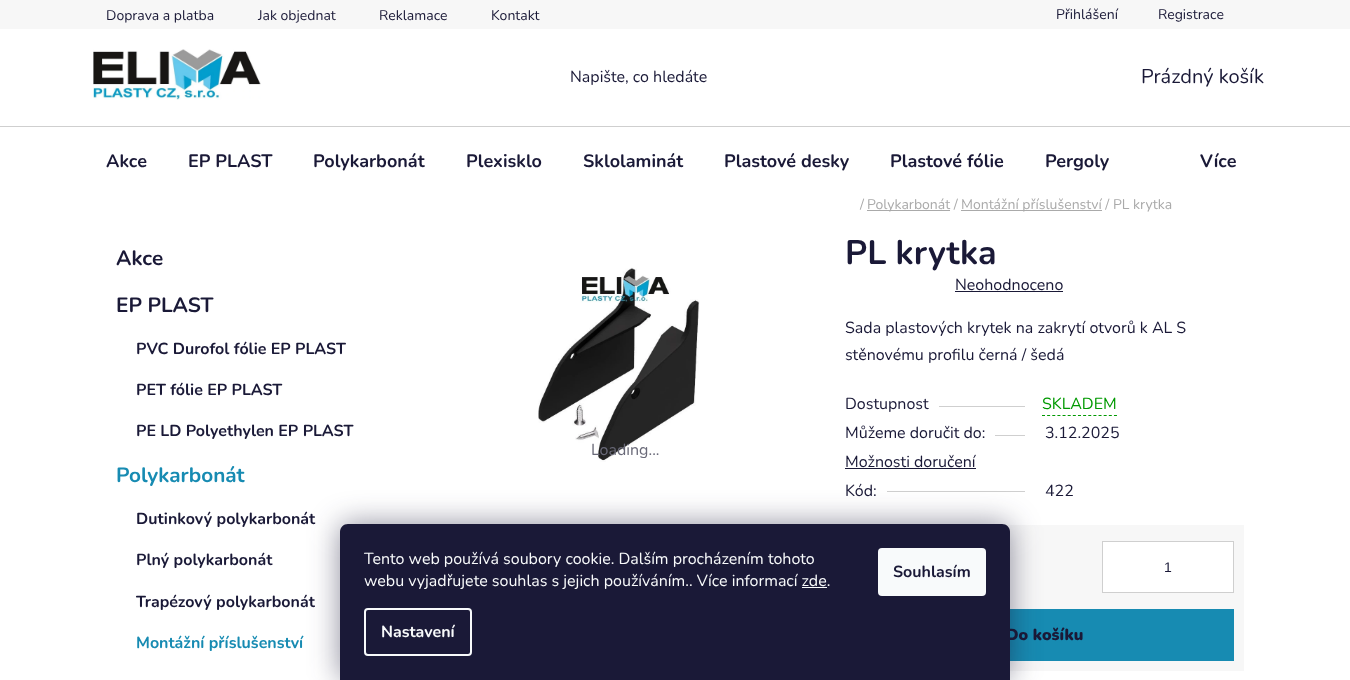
<svg xmlns="http://www.w3.org/2000/svg" width="1350" height="680" viewBox="0 0 1350 680">
  <rect width="100%" height="100%" fill="rgb(255,255,255)"/>
  <rect x="0" y="0" width="1350" height="29" fill="rgb(247,247,247)"/>
  <g font-family="Nunito" font-size="14" fill="rgb(26,25,55)">
    <text x="106" y="20">Doprava a platba</text>
    <text x="258" y="20">Jak objednat</text>
    <text x="379" y="20">Reklamace</text>
    <text x="491" y="20">Kontakt</text>
    <text x="1056" y="19">Přihlášení</text>
    <text x="1158" y="19">Registrace</text>
  </g>
  <image x="93" y="49" width="168" height="51" href="pic1.png"/>
  <text x="570" y="82" font-family="Nunito" font-size="16" fill="rgb(26,25,55)">Napište, co hledáte</text>
  <text x="1141" y="83" font-family="Nunito" font-size="20" fill="rgb(26,25,55)">Prázdný košík</text>
  <rect x="0" y="126" width="1350" height="1" fill="rgb(207,207,207)"/>
  <g font-family="Nunito" font-size="18" font-weight="bold" fill="rgb(26,25,55)">
    <text x="106" y="167">Akce</text>
    <text x="188" y="167">EP PLAST</text>
    <text x="313" y="167">Polykarbonát</text>
    <text x="466" y="167">Plexisklo</text>
    <text x="583" y="167">Sklolaminát</text>
    <text x="724" y="167">Plastové desky</text>
    <text x="890" y="167">Plastové fólie</text>
    <text x="1045" y="167">Pergoly</text>
    <text x="1200" y="167">Více</text>
  </g>
  <text x="860" y="209" font-family="Nunito" font-size="14" fill="rgb(170,170,170)">/</text>
  <rect x="867" y="210" width="83" height="1" fill="rgb(170,170,170)"/>
  <text x="867" y="209" font-family="Nunito" font-size="14" fill="rgb(170,170,170)">Polykarbonát /</text>
  <rect x="961" y="210" width="141" height="1" fill="rgb(170,170,170)"/>
  <text x="961" y="209" font-family="Nunito" font-size="14" fill="rgb(170,170,170)">Montážní příslušenství / PL krytka</text>
  <g font-family="Nunito" font-size="20.75" font-weight="bold" fill="rgb(26,25,55)">
    <text x="116" y="265">Akce</text>
    <text x="116" y="312">EP PLAST</text>
  </g>
  <g font-family="Nunito" font-size="16" font-weight="bold" fill="rgb(26,25,55)">
    <text x="136" y="354">PVC Durofol fólie EP PLAST</text>
    <text x="136" y="395">PET fólie EP PLAST</text>
    <text x="136" y="436">PE LD Polyethylen EP PLAST</text>
  </g>
  <text x="116" y="482" font-family="Nunito" font-size="20.75" font-weight="bold" fill="rgb(23,139,178)">Polykarbonát</text>
  <g font-family="Nunito" font-size="16" font-weight="bold" fill="rgb(26,25,55)">
    <text x="136" y="524">Dutinkový polykarbonát</text>
    <text x="136" y="565">Plný polykarbonát</text>
    <text x="136" y="607">Trapézový polykarbonát</text>
  </g>
  <text x="136" y="648" font-family="Nunito" font-size="16" font-weight="bold" fill="rgb(23,139,178)">Montážní příslušenství</text>
  <image x="538" y="267" width="162" height="195" href="pic2.png"/>
  <text x="591" y="455" font-family="Nunito" font-size="16" fill="rgb(105,105,120)">Loading...</text>
  <text x="845" y="264" font-family="Nunito" font-size="34" font-weight="bold" fill="rgb(26,25,55)">PL krytka</text>
  <text x="955" y="290" font-family="Nunito" font-size="16" fill="rgb(26,25,55)">Neohodnoceno</text>
  <rect x="955" y="291" width="108" height="1" fill="rgb(26,25,55)"/>
  <g font-family="Nunito" font-size="16" fill="rgb(26,25,55)">
    <text>
      <tspan x="845" y="333">Sada plastových krytek na zakrytí otvorů k AL S</tspan>
      <tspan x="845" y="360">stěnovému profilu černá / šedá</tspan>
    </text>
    <text x="845" y="409">Dostupnost</text>
  </g>
  <rect x="939" y="406" width="86" height="1" fill="rgb(207,207,207)"/>
  <text x="1042" y="409" font-family="Nunito" font-size="16" fill="rgb(0,153,1)">SKLADEM</text>
  <path d="M1042 415.5H1117" fill="none" stroke="rgb(0,153,1)" stroke-dasharray="3 2.14"/>
  <text x="845" y="438" font-family="Nunito" font-size="16" fill="rgb(26,25,55)">Můžeme doručit do:</text>
  <rect x="995" y="435" width="30" height="1" fill="rgb(207,207,207)"/>
  <g font-family="Nunito" font-size="16" fill="rgb(26,25,55)">
    <text x="1045" y="438">3.12.2025</text>
    <text x="845" y="467">Možnosti doručení</text>
  </g>
  <rect x="845" y="468" width="131" height="1" fill="rgb(26,25,55)"/>
  <text x="845" y="496" font-family="Nunito" font-size="16" fill="rgb(26,25,55)">Kód:</text>
  <rect x="887" y="491" width="138" height="1" fill="rgb(207,207,207)"/>
  <text x="1045" y="496" font-family="Nunito" font-size="16" fill="rgb(26,25,55)">422</text>
  <rect x="1005" y="525" width="239" height="146" fill="rgb(247,247,247)"/>
  <rect x="1102.5" y="541.5" width="131" height="51" fill="rgb(255,255,255)" stroke="rgb(207,207,207)"/>
  <text x="1164" y="572" font-family="Liberation Sans" font-size="14" fill="rgb(26,25,55)">1</text>
  <rect x="1010" y="609" width="224" height="52" fill="rgb(23,139,178)"/>
  <text x="1006" y="640" font-family="Nunito" font-size="16" font-weight="900" fill="rgb(26,25,55)">Do košíku</text>
  <rect x="340" y="524" width="670" height="156" rx="8" fill="rgba(27,25,57,0.5)" filter="blur(15px)"/>
  <path d="M348 524H1002C1006.5 524 1010 527.5 1010 532V680H340V532C340 527.5 343.5 524 348 524Z" fill="rgb(26,25,55)"/>
  <g font-family="Nunito" font-size="16" fill="rgb(248,250,251)">
    <text>
      <tspan x="364" y="564">Tento web používá soubory cookie. Dalším procházením tohoto</tspan>
      <tspan x="364" y="586">webu vyjadřujete souhlas s jejich používáním.. Více informací zde.</tspan>
    </text>
  </g>
  <rect x="802" y="587" width="25" height="1" fill="rgb(248,250,251)"/>
  <rect x="365" y="609" width="106" height="46" rx="3" fill="none" stroke="rgb(248,250,251)" stroke-width="2"/>
  <text x="381" y="637" font-family="Nunito" font-size="16" font-weight="bold" fill="rgb(248,250,251)">Nastavení</text>
  <rect x="878" y="548" width="108" height="48" rx="4" fill="rgb(248,250,251)"/>
  <text x="893" y="577" font-family="Nunito" font-size="16" font-weight="bold" fill="rgb(26,25,55)">Souhlasím</text>
</svg>
